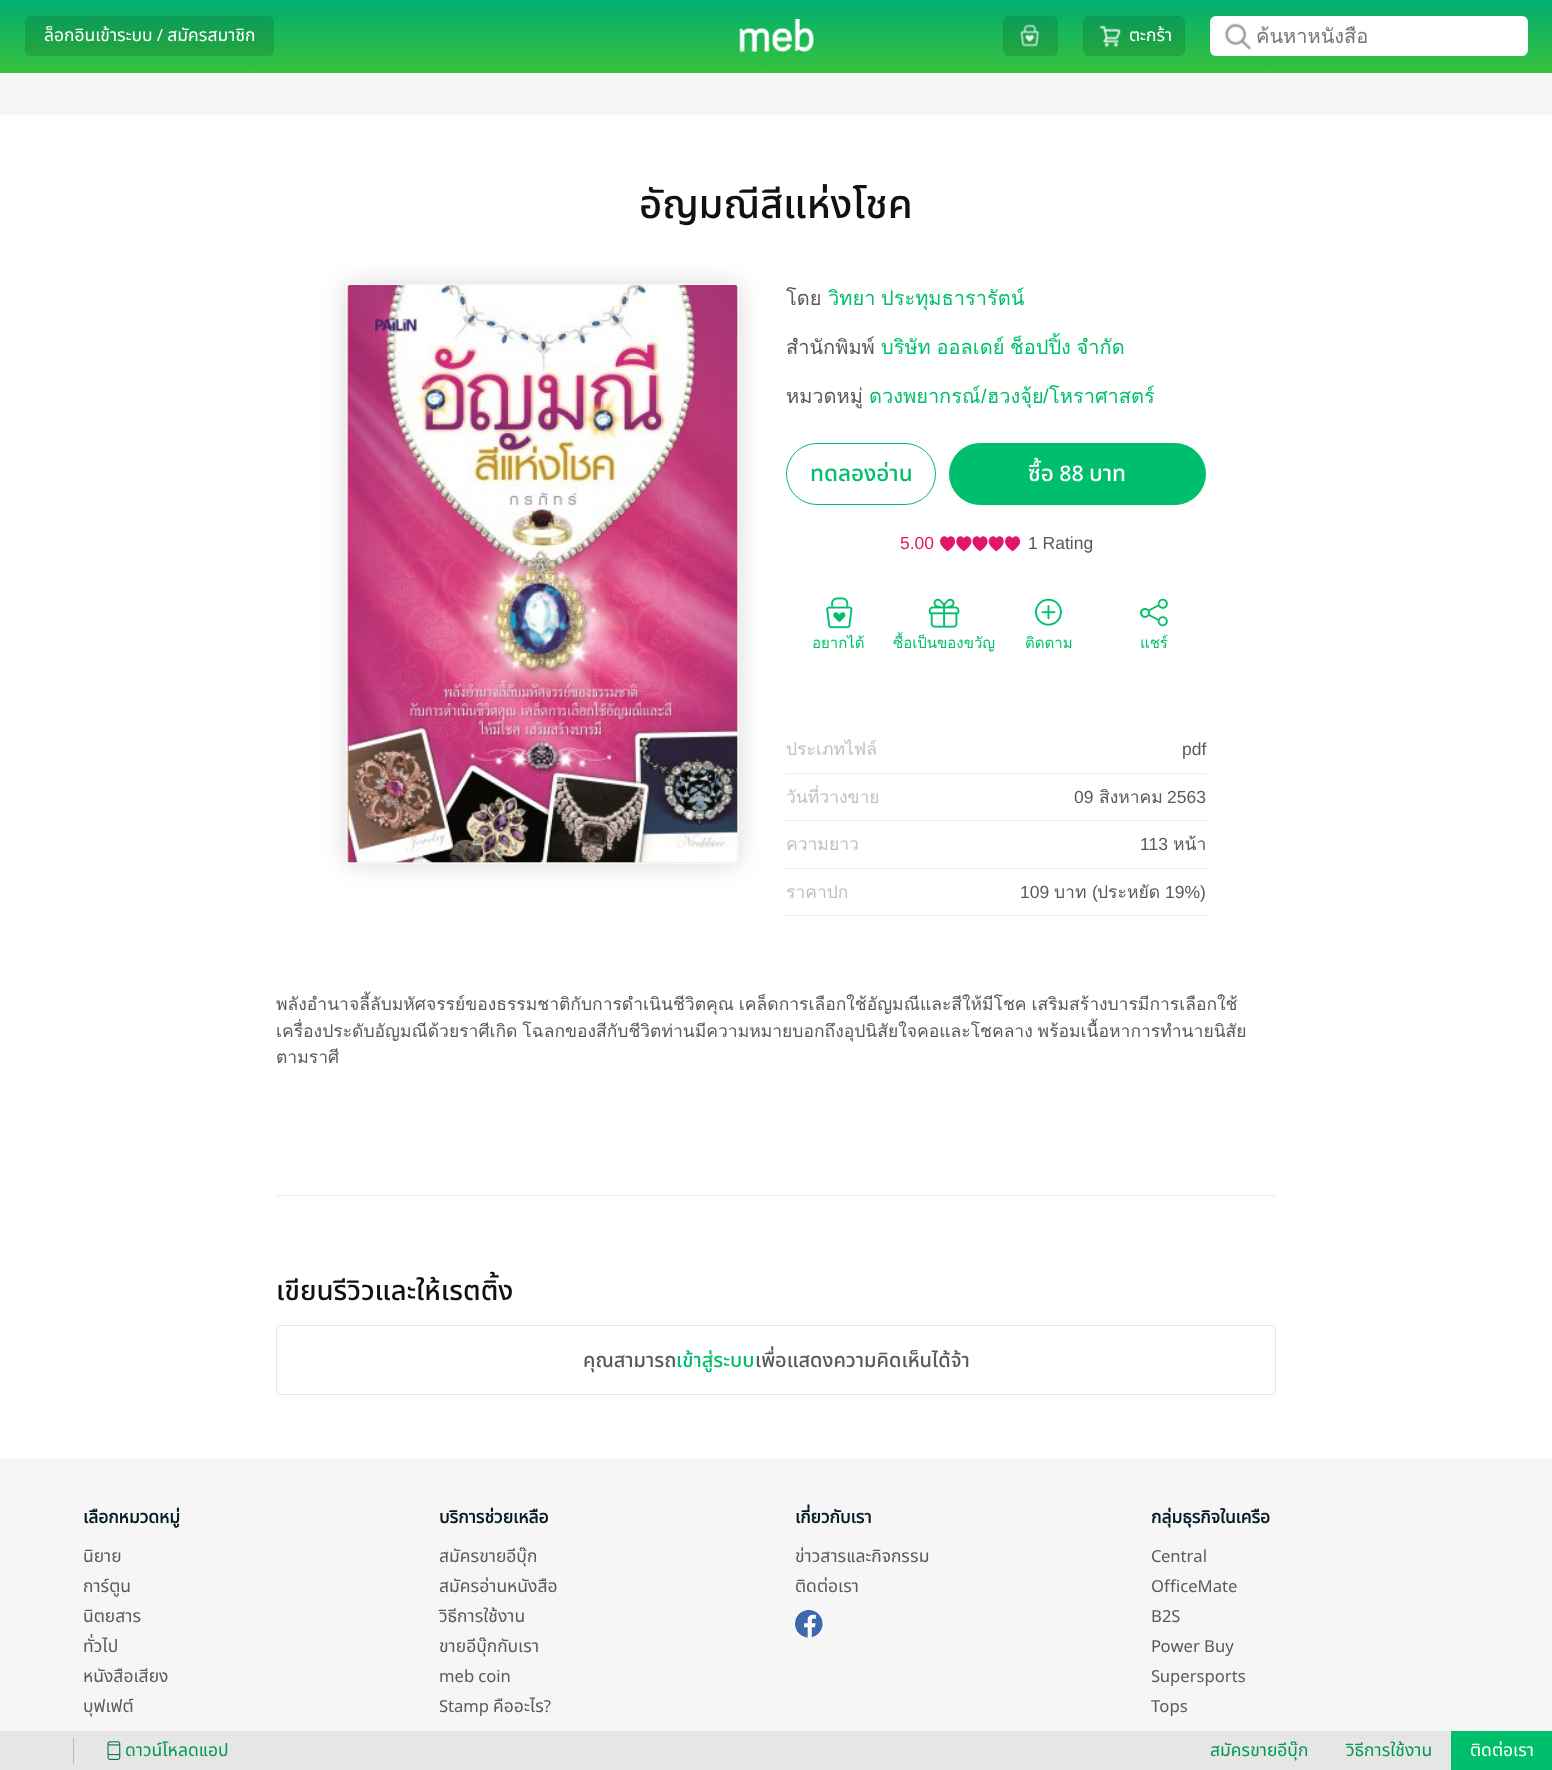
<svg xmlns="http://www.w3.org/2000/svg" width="1552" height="1770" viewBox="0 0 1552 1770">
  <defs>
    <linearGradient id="g1" gradientUnits="userSpaceOnUse" x1="776" y1="0" x2="776" y2="73"><stop offset="0" stop-color="rgb(0,175,112)"/><stop offset="1" stop-color="rgb(55,193,61)"/></linearGradient>
    <clipPath id="clip1"><rect x="1256" y="20" width="259" height="31"/></clipPath>
  </defs>
  <rect width="100%" height="100%" fill="rgb(255,255,255)"/>
  <rect x="0" y="0" width="1552" height="73" fill="url(#g1)"/>
  <rect x="25" y="16" width="249" height="40" rx="6" fill="rgba(0,0,0,0.12)"/>
  <text x="44" y="41" font-family="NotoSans" font-size="17.5" fill="rgb(255,255,255)">ล็อกอินเข้าระบบ / สมัครสมาชิก</text>
  <image x="739" y="19" width="75" height="33" href="pic1.png"/>
  <rect x="1003" y="16" width="55" height="40" rx="6" fill="rgba(0,0,0,0.12)"/>
  <image x="1020" y="24" width="20" height="23" href="pic2.png"/>
  <rect x="1083" y="16" width="102" height="40" rx="6" fill="rgba(0,0,0,0.12)"/>
  <image x="1099" y="25" width="22" height="23" href="pic3.png"/>
  <text x="1129" y="41" font-family="NotoSans" font-size="17.5" fill="rgb(255,255,255)">ตะกร้า</text>
  <rect x="1210" y="16" width="318" height="40" rx="6" fill="rgb(255,255,255)"/>
  <image x="1224" y="23" width="27" height="27" href="pic4.png"/>
  <g clip-path="url(#clip1)">
    <text x="1256" y="43" font-family="Loma" font-size="20" fill="rgb(119,119,119)">ค้นหาหนังสือ</text>
  </g>
  <rect x="0" y="73" width="1552" height="42" fill="rgb(246,246,246)"/>
  <text x="639" y="218" font-family="NotoSans" font-size="40" font-weight="500" fill="rgb(17,17,17)">อัญมณีสีแห่งโชค</text>
  <rect x="346" y="284" width="393" height="580" rx="4" fill="rgba(0,0,0,0.15)" filter="blur(12.5px)"/>
  <rect x="346.5" y="284.5" width="392" height="579" rx="3.5" fill="none" stroke="rgb(246,246,246)"/>
  <image x="347" y="285" width="391" height="578" href="pic5.png"/>
  <text x="786" y="305" font-family="Loma" font-size="20" fill="rgb(90,90,90)">โดย</text>
  <g font-family="Loma" font-size="20" fill="rgb(0,191,108)">
    <text x="828" y="305">วิทยา</text>
    <text x="881" y="305">ประทุมธารารัตน์</text>
  </g>
  <text x="786" y="354" font-family="Loma" font-size="20" fill="rgb(90,90,90)">สำนักพิมพ์</text>
  <text x="881" y="354" word-spacing="-1" font-family="Loma" font-size="20" fill="rgb(0,191,108)">บริษัท ออลเดย์ ช็อปปิ้ง จำกัด</text>
  <text x="786" y="403" font-family="Loma" font-size="20" fill="rgb(90,90,90)">หมวดหมู่</text>
  <text x="869" y="403" font-family="Loma" font-size="20" fill="rgb(0,191,108)">ดวงพยากรณ์</text>
  <text x="981" y="403" font-family="Liberation Sans" font-size="20" fill="rgb(0,191,108)">/</text>
  <text x="987" y="403" font-family="Loma" font-size="20" fill="rgb(0,191,108)">ฮวงจุ้ย</text>
  <text x="1043" y="403" font-family="Liberation Sans" font-size="20" fill="rgb(0,191,108)">/</text>
  <text x="1049" y="403" font-family="Loma" font-size="20" fill="rgb(0,191,108)">โหราศาสตร์</text>
  <rect x="786.5" y="443.5" width="149" height="61" rx="30.5" fill="none" stroke="rgb(0,191,108)"/>
  <text x="810" y="481" font-family="NotoSans" font-size="22.5" font-weight="500" fill="rgb(0,191,108)">ทดลองอ่าน</text>
  <rect x="949.5" y="443.5" width="256" height="61" rx="30.5" fill="rgb(0,191,108)" stroke="rgb(0,191,108)"/>
  <text x="1028" y="481" font-family="NotoSans" font-size="22.5" font-weight="500" fill="rgb(255,255,255)">ซื้อ 88 บาท</text>
  <text x="900" y="549" font-family="Liberation Sans" font-size="17.5" fill="rgb(224,22,106)">5.00</text>
  <image x="940" y="536" width="15" height="16" href="pic6.png"/>
  <image x="956" y="536" width="16" height="16" href="pic7.png"/>
  <image x="972" y="536" width="16" height="16" href="pic8.png"/>
  <image x="988" y="536" width="16" height="16" href="pic9.png"/>
  <image x="1005" y="536" width="15" height="16" href="pic6.png"/>
  <text x="1028" y="549" font-family="Liberation Sans" font-size="17.5" fill="rgb(90,90,90)">1 Rating</text>
  <image x="826" y="597" width="27" height="32" href="pic10.png"/>
  <text x="812" y="648" font-family="Loma" font-size="15" fill="rgb(0,191,108)">อยากได้</text>
  <image x="928" y="598" width="32" height="30" href="pic11.png"/>
  <text x="893" y="648" font-family="Loma" font-size="15" fill="rgb(0,191,108)">ซื้อเป็นของขวัญ</text>
  <image x="1035" y="598" width="27" height="28" href="pic12.png"/>
  <text x="1025" y="648" font-family="Loma" font-size="15" fill="rgb(0,191,108)">ติดตาม</text>
  <image x="1140" y="598" width="28" height="29" href="pic13.png"/>
  <text x="1140" y="648" font-family="Loma" font-size="15" fill="rgb(0,191,108)">แชร์</text>
  <rect x="786" y="773" width="420" height="1" fill="rgb(238,238,238)"/>
  <text x="786" y="755" font-family="Loma" font-size="17.5" fill="rgb(192,192,192)">ประเภทไฟล์</text>
  <text x="1182" y="755" font-family="Liberation Sans" font-size="17.5" fill="rgb(90,90,90)">pdf</text>
  <rect x="786" y="820" width="420" height="1" fill="rgb(238,238,238)"/>
  <text x="786" y="803" font-family="Loma" font-size="17.5" fill="rgb(192,192,192)">วันที่วางขาย</text>
  <text x="1074" y="803" font-family="Liberation Sans" font-size="17.5" fill="rgb(90,90,90)">09</text>
  <text x="1099" y="803" font-family="Loma" font-size="17.5" fill="rgb(90,90,90)">สิงหาคม</text>
  <text x="1167" y="803" font-family="Liberation Sans" font-size="17.5" fill="rgb(90,90,90)">2563</text>
  <rect x="786" y="868" width="420" height="1" fill="rgb(238,238,238)"/>
  <text x="786" y="850" font-family="Loma" font-size="17.5" fill="rgb(192,192,192)">ความยาว</text>
  <text x="1140" y="850" font-family="Liberation Sans" font-size="17.5" fill="rgb(90,90,90)">113</text>
  <text x="1173" y="850" font-family="Loma" font-size="17.5" fill="rgb(90,90,90)">หน้า</text>
  <rect x="786" y="915" width="420" height="1" fill="rgb(238,238,238)"/>
  <text x="786" y="898" font-family="Loma" font-size="17.5" fill="rgb(192,192,192)">ราคาปก</text>
  <text x="1020" y="898" font-family="Liberation Sans" font-size="17.5" fill="rgb(90,90,90)">109</text>
  <text x="1054" y="898" font-family="Loma" font-size="17.5" fill="rgb(90,90,90)">บาท</text>
  <text x="1092" y="898" font-family="Liberation Sans" font-size="17.5" fill="rgb(90,90,90)">(</text>
  <text x="1097" y="898" font-family="Loma" font-size="17.5" fill="rgb(90,90,90)">ประหยัด</text>
  <text x="1165" y="898" font-family="Liberation Sans" font-size="17.5" fill="rgb(90,90,90)">19%)</text>
  <g font-family="Loma" font-size="17.5" fill="rgb(90,90,90)">
    <text>
      <tspan x="276" y="1010" word-spacing="-1">พลังอำนาจลี้ลับมหัศจรรย์ของธรรมชาติกับการดำเนินชีวิตคุณ เคล็ดการเลือกใช้อัญมณีและสีให้มีโชค เสริมสร้างบารมีการเลือกใช้</tspan>
      <tspan x="276" y="1037" word-spacing="-1">เครื่องประดับอัญมณีด้วยราศีเกิด โฉลกของสีกับชีวิตท่านมีความหมายบอกถึงอุปนิสัยใจคอและโชคลาง พร้อมเนื้อหาการทำนายนิสัย</tspan>
      <tspan x="276" y="1063">ตามราศี</tspan>
    </text>
  </g>
  <rect x="276" y="1195" width="1000" height="1" fill="rgb(238,238,238)"/>
  <text x="276" y="1300" font-family="NotoSans" font-size="27.5" font-weight="500" fill="rgb(17,17,17)">เขียนรีวิวและให้เรตติ้ง</text>
  <rect x="276.5" y="1325.5" width="999" height="69" rx="3.5" fill="none" stroke="rgb(230,230,230)"/>
  <text x="583" y="1367" font-family="NotoSans" font-size="20" font-weight="500" fill="rgb(90,90,90)">คุณสามารถ</text>
  <text x="676" y="1367" font-family="NotoSans" font-size="20" font-weight="500" fill="rgb(0,191,108)">เข้าสู่ระบบ</text>
  <text x="755" y="1367" font-family="NotoSans" font-size="20" font-weight="500" fill="rgb(90,90,90)">เพื่อแสดงความคิดเห็นได้จ้า</text>
  <rect x="0" y="1458" width="1552" height="273" fill="rgb(246,246,246)"/>
  <text x="83" y="1523" font-family="NotoSans" font-size="17.5" font-weight="bold" fill="rgb(2,26,36)">เลือกหมวดหมู่</text>
  <g font-family="NotoSans" font-size="17.5" fill="rgb(90,90,90)">
    <text>
      <tspan x="83" y="1562">นิยาย</tspan>
      <tspan x="83" y="1592">การ์ตูน</tspan>
      <tspan x="83" y="1622">นิตยสาร</tspan>
      <tspan x="83" y="1652">ทั่วไป</tspan>
      <tspan x="83" y="1682">หนังสือเสียง</tspan>
      <tspan x="83" y="1712">บุฟเฟต์</tspan>
    </text>
  </g>
  <text x="439" y="1523" font-family="NotoSans" font-size="17.5" font-weight="bold" fill="rgb(2,26,36)">บริการช่วยเหลือ</text>
  <g font-family="NotoSans" font-size="17.5" fill="rgb(90,90,90)">
    <text>
      <tspan x="439" y="1562">สมัครขายอีบุ๊ก</tspan>
      <tspan x="439" y="1592">สมัครอ่านหนังสือ</tspan>
      <tspan x="439" y="1622">วิธีการใช้งาน</tspan>
      <tspan x="439" y="1652">ขายอีบุ๊กกับเรา</tspan>
      <tspan x="439" y="1682">meb coin</tspan>
      <tspan x="439" y="1712">Stamp คืออะไร?</tspan>
    </text>
  </g>
  <text x="795" y="1523" font-family="NotoSans" font-size="17.5" font-weight="bold" fill="rgb(2,26,36)">เกี่ยวกับเรา</text>
  <g font-family="NotoSans" font-size="17.5" fill="rgb(90,90,90)">
    <text>
      <tspan x="795" y="1562">ข่าวสารและกิจกรรม</tspan>
      <tspan x="795" y="1592">ติดต่อเรา</tspan>
    </text>
  </g>
  <image x="795" y="1610" width="28" height="28" href="pic14.png"/>
  <text x="1151" y="1523" font-family="NotoSans" font-size="17.5" font-weight="bold" fill="rgb(2,26,36)">กลุ่มธุรกิจในเครือ</text>
  <g font-family="NotoSans" font-size="17.5" fill="rgb(90,90,90)">
    <text>
      <tspan x="1151" y="1562">Central</tspan>
      <tspan x="1151" y="1592">OfficeMate</tspan>
      <tspan x="1151" y="1622">B2S</tspan>
      <tspan x="1151" y="1652">Power Buy</tspan>
      <tspan x="1151" y="1682">Supersports</tspan>
      <tspan x="1151" y="1712">Tops</tspan>
    </text>
  </g>
  <rect x="0" y="1731" width="1451" height="39" fill="rgb(230,230,230)"/>
  <rect x="73" y="1738" width="1" height="26" fill="rgb(184,184,184)"/>
  <image x="107" y="1741" width="14" height="19" href="pic15.png"/>
  <g font-family="NotoSans" font-size="17.5" fill="rgb(0,153,86)">
    <text x="125" y="1756">ดาวน์โหลดแอป</text>
    <text x="1210" y="1756">สมัครขายอีบุ๊ก</text>
    <text x="1346" y="1756">วิธีการใช้งาน</text>
  </g>
  <rect x="1451" y="1731" width="101" height="39" fill="rgb(0,191,108)"/>
  <text x="1470" y="1756" font-family="NotoSans" font-size="17.5" fill="rgb(255,255,255)">ติดต่อเรา</text>
</svg>
